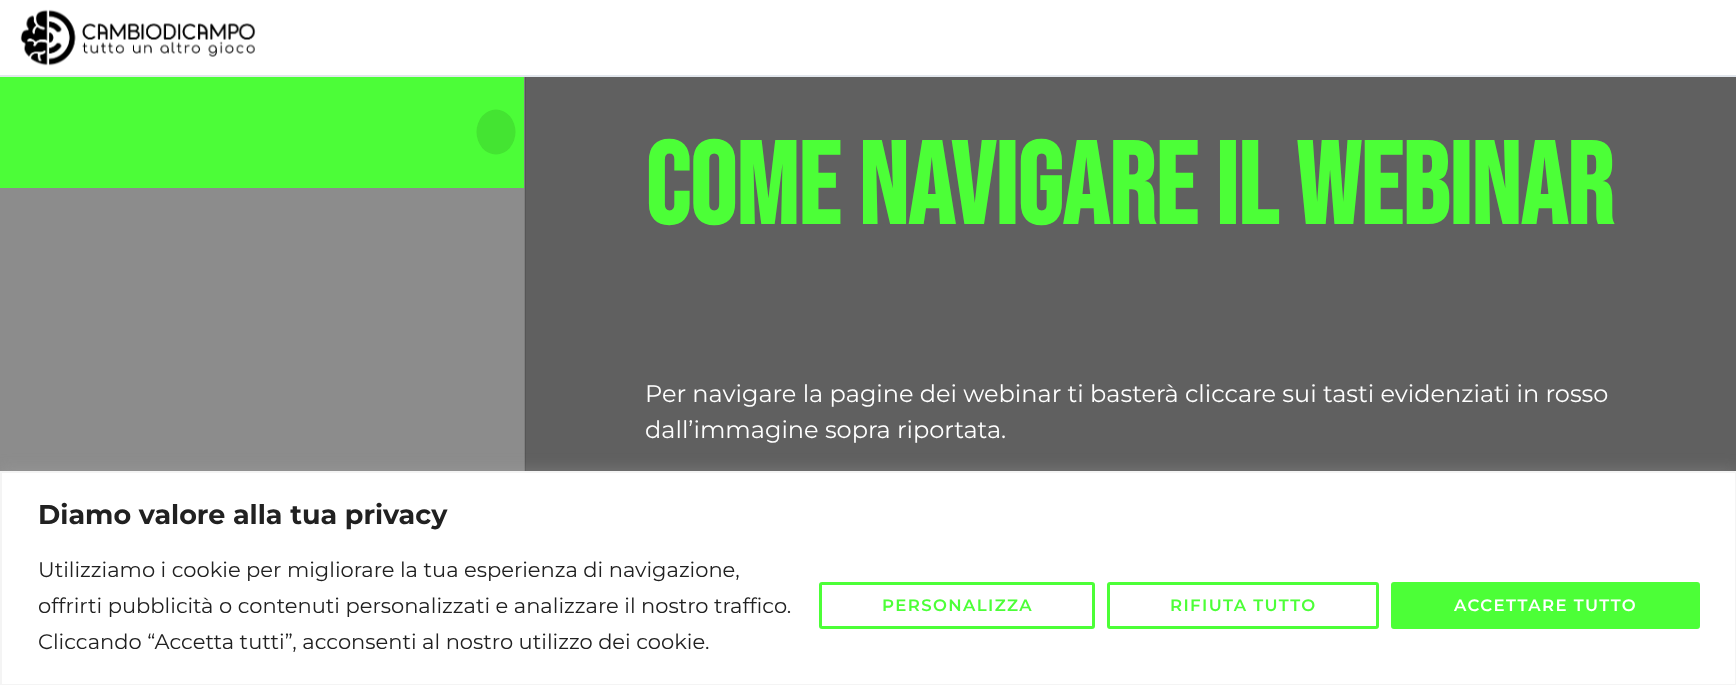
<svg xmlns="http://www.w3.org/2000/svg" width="1736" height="685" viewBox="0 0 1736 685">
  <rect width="100%" height="100%" fill="rgb(96,96,96)"/>
  <rect x="525" y="77" width="1" height="394" fill="rgb(86,86,86)"/>
  <rect x="0" y="188" width="524" height="283" fill="rgb(140,140,140)"/>
  <rect x="524" y="77" width="1" height="394" fill="rgb(126,126,126)"/>
  <rect x="0" y="77" width="524" height="111" fill="rgb(76,253,56)"/>
  <ellipse cx="496" cy="132" rx="19.5" ry="22.5" fill="rgb(68,228,50)"/>
  <rect x="0" y="0" width="1736" height="75" fill="rgb(255,255,255)"/>
  <rect x="0" y="75" width="1736" height="2" fill="rgb(226,231,237)"/>
  <image x="20" y="9" width="236" height="57" href="pic1.png"/>
  <text x="645" y="224" font-family="Bebas Neue" font-size="115.5" font-weight="bold" fill="rgb(76,255,55)">Come navigare il webinar</text>
  <g font-family="Montserrat" font-size="24" fill="rgb(255,255,255)">
    <text>
      <tspan x="645" y="402">Per navigare la pagine dei webinar ti basterà cliccare sui tasti evidenziati in rosso</tspan>
      <tspan x="645" y="438">dall’immagine sopra riportata.</tspan>
    </text>
  </g>
  <rect x="0" y="470" width="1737" height="214" fill="rgba(172,171,171,0.3)" filter="blur(7.5px)"/>
  <rect x="1" y="472" width="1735" height="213" fill="rgb(255,255,255)" stroke="rgb(244,244,244)" stroke-width="2"/>
  <text x="38" y="524" font-family="Montserrat" font-size="27" font-weight="bold" fill="rgb(33,33,33)">Diamo valore alla tua privacy</text>
  <g font-family="Montserrat" font-size="21" fill="rgb(33,33,33)">
    <text>
      <tspan x="38" y="577">Utilizziamo i cookie per migliorare la tua esperienza di navigazione,</tspan>
      <tspan x="38" y="613">offrirti pubblicità o contenuti personalizzati e analizzare il nostro traffico.</tspan>
      <tspan x="38" y="649">Cliccando “Accetta tutti”, acconsenti al nostro utilizzo dei cookie.</tspan>
    </text>
  </g>
  <rect x="820.5" y="583.5" width="273" height="44" rx="1.5" fill="none" stroke="rgb(76,255,55)" stroke-width="3"/>
  <text x="882" y="611" font-family="Montserrat" font-size="16.5" font-weight="600" letter-spacing="1.4" fill="rgb(76,255,55)">PERSONALIZZA</text>
  <rect x="1108.5" y="583.5" width="269" height="44" rx="1.5" fill="none" stroke="rgb(76,255,55)" stroke-width="3"/>
  <text x="1170" y="611" font-family="Montserrat" font-size="16.5" font-weight="600" letter-spacing="1.4" fill="rgb(76,255,55)">RIFIUTA TUTTO</text>
  <rect x="1392.5" y="583.5" width="306" height="44" rx="1.5" fill="rgb(76,255,55)" stroke="rgb(76,255,55)" stroke-width="3"/>
  <text x="1454" y="611" font-family="Montserrat" font-size="16.5" font-weight="600" letter-spacing="1.4" fill="rgb(255,255,255)">ACCETTARE TUTTO</text>
</svg>
